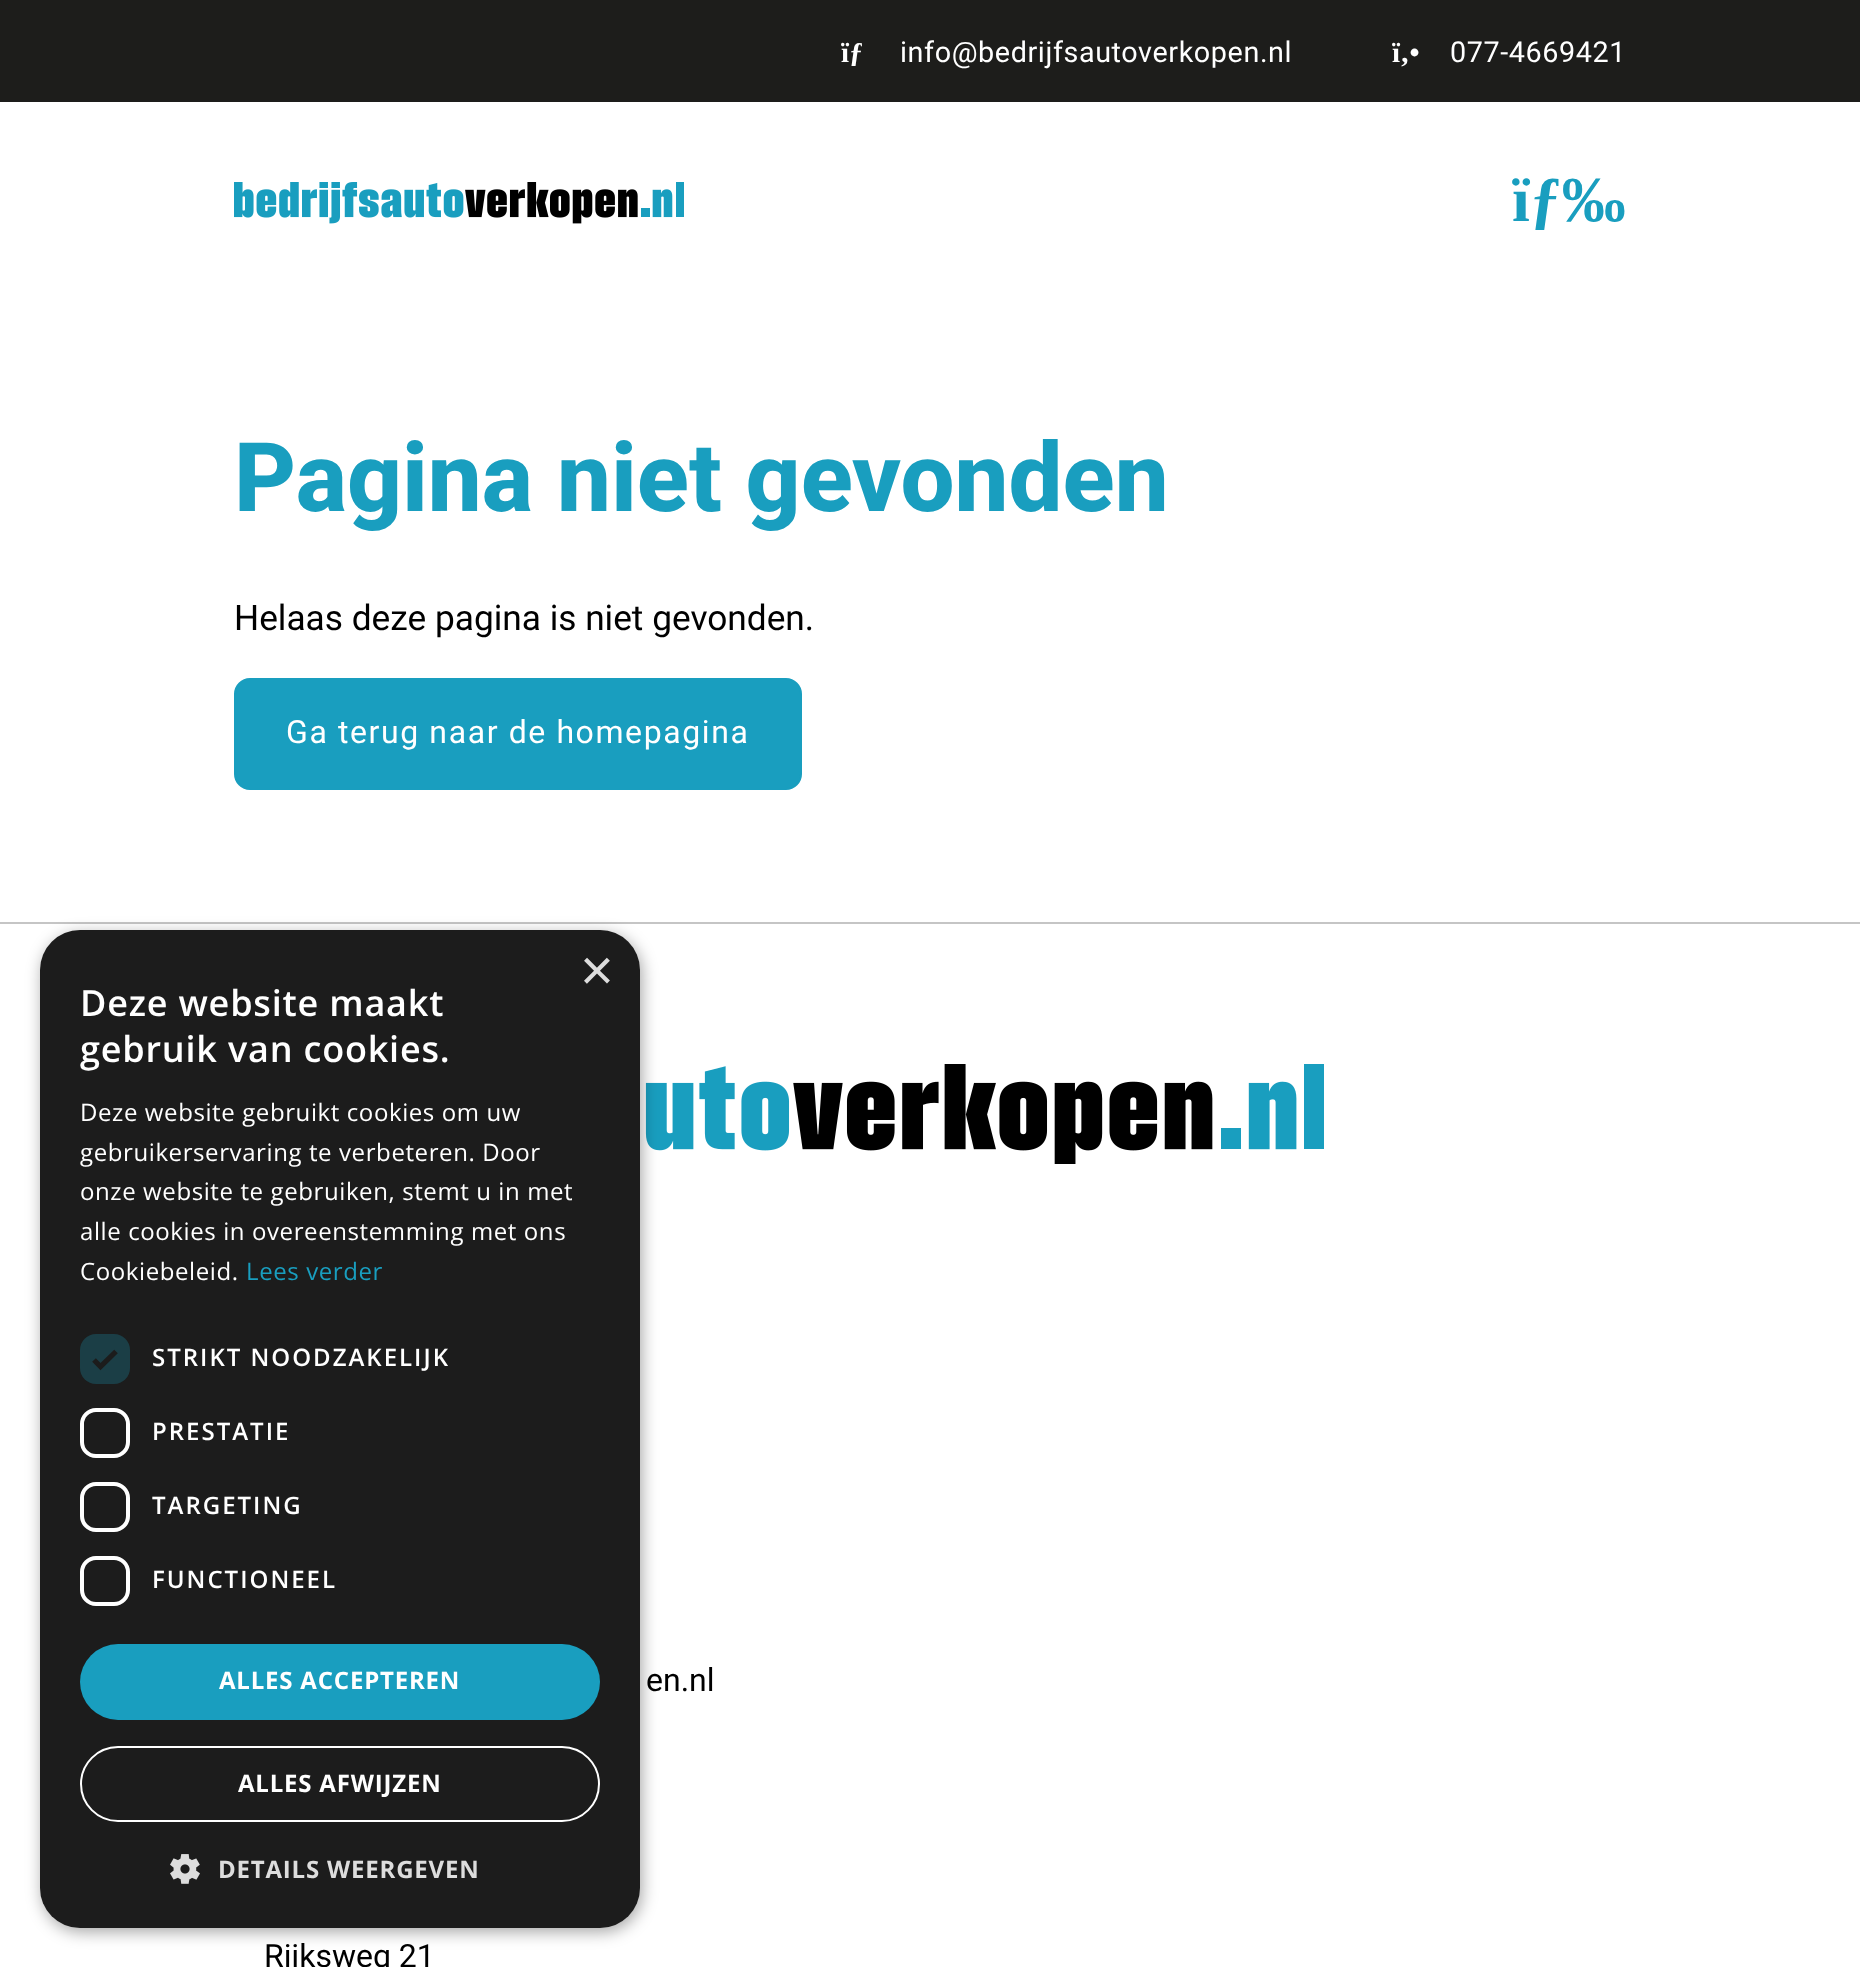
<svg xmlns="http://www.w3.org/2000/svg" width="1860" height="1967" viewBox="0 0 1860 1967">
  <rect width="100%" height="100%" fill="rgb(255,255,255)"/>
  <rect x="0" y="0" width="1860" height="102" fill="rgb(29,29,27)"/>
  <text x="841" y="62" font-family="Liberation Serif" font-size="28.75" font-weight="bold" fill="rgb(255,255,255)">ïƒ</text>
  <text x="900" y="62" font-family="Roboto" font-size="28.75" letter-spacing="0.6" fill="rgb(255,255,255)">info@bedrijfsautoverkopen.nl</text>
  <text x="1392" y="62" font-family="Liberation Serif" font-size="28.75" font-weight="bold" fill="rgb(255,255,255)">ï‚•</text>
  <text x="1450" y="62" font-family="Roboto" font-size="28.75" letter-spacing="0.6" fill="rgb(255,255,255)">077-4669421</text>
  <image x="234" y="182" width="450" height="42" href="pic1.png"/>
  <text x="1512" y="221" font-family="Liberation Serif" font-size="64" font-weight="bold" fill="rgb(25,158,191)">ïƒ‰</text>
  <text x="234" y="511" font-family="Roboto" font-size="96" font-weight="800" fill="rgb(25,158,191)">Pagina niet gevonden</text>
  <text x="234" y="630" font-family="Roboto" font-size="35.25" fill="rgb(0,0,0)">Helaas deze pagina is niet gevonden.</text>
  <rect x="235" y="679" width="566" height="110" rx="15" fill="rgb(25,158,191)" stroke="rgb(25,158,191)" stroke-width="2"/>
  <text x="286" y="743" font-family="Roboto" font-size="32" letter-spacing="1.6" fill="rgb(255,255,255)">Ga terug naar de homepagina</text>
  <rect x="0" y="922" width="1860" height="2" fill="rgb(197,197,197)"/>
  <image x="645" y="1064" width="679" height="100" href="pic3.png"/>
  <rect x="42" y="934" width="600" height="998" rx="40" fill="rgba(0,0,0,0.35)" filter="blur(8px)"/>
  <rect x="40" y="930" width="600" height="998" rx="40" fill="rgb(28,28,28)"/>
  <text x="580" y="990" font-family="Liberation Sans" font-size="58" fill="rgb(221,221,221)">×</text>
  <g font-family="Open Sans" font-size="36" font-weight="600" letter-spacing="0.8" fill="rgb(255,255,255)">
    <text>
      <tspan x="80" y="1016">Deze website maakt</tspan>
      <tspan x="80" y="1062">gebruik van cookies.</tspan>
    </text>
  </g>
  <g font-family="Open Sans" font-size="24" letter-spacing="0.6" fill="rgb(255,255,255)">
    <text>
      <tspan x="80" y="1121">Deze website gebruikt cookies om uw</tspan>
      <tspan x="80" y="1161">gebruikerservaring te verbeteren. Door</tspan>
      <tspan x="80" y="1200">onze website te gebruiken, stemt u in met</tspan>
      <tspan x="80" y="1240">alle cookies in overeenstemming met ons</tspan>
      <tspan x="80" y="1280">Cookiebeleid.</tspan>
    </text>
  </g>
  <text x="246" y="1280" font-family="Open Sans" font-size="24" letter-spacing="0.6" fill="rgb(25,158,191)">Lees verder</text>
  <rect x="80" y="1334" width="50" height="50" rx="16" fill="rgb(27,62,70)"/>
  <path d="M94 1360L100.5 1366.5L116 1351.5" fill="none" stroke="rgb(28,28,28)" stroke-width="5.2"/>
  <text x="152" y="1366" font-family="Open Sans" font-size="24" font-weight="600" letter-spacing="2" fill="rgb(255,255,255)">STRIKT NOODZAKELIJK</text>
  <rect x="82" y="1410" width="46" height="46" rx="14" fill="none" stroke="rgb(255,255,255)" stroke-width="4"/>
  <text x="152" y="1440" font-family="Open Sans" font-size="24" font-weight="600" letter-spacing="2" fill="rgb(255,255,255)">PRESTATIE</text>
  <rect x="82" y="1484" width="46" height="46" rx="14" fill="none" stroke="rgb(255,255,255)" stroke-width="4"/>
  <text x="152" y="1514" font-family="Open Sans" font-size="24" font-weight="600" letter-spacing="2" fill="rgb(255,255,255)">TARGETING</text>
  <rect x="82" y="1558" width="46" height="46" rx="14" fill="none" stroke="rgb(255,255,255)" stroke-width="4"/>
  <text x="152" y="1588" font-family="Open Sans" font-size="24" font-weight="600" letter-spacing="2" fill="rgb(255,255,255)">FUNCTIONEEL</text>
  <rect x="80" y="1644" width="520" height="76" rx="38" fill="rgb(25,158,191)"/>
  <text x="219" y="1689" font-family="Open Sans" font-size="24" font-weight="bold" letter-spacing="0.8" fill="rgb(255,255,255)">ALLES ACCEPTEREN</text>
  <rect x="81" y="1747" width="518" height="74" rx="37" fill="none" stroke="rgb(255,255,255)" stroke-width="2"/>
  <text x="238" y="1792" font-family="Open Sans" font-size="24" font-weight="bold" letter-spacing="0.8" fill="rgb(255,255,255)">ALLES AFWIJZEN</text>
  <image x="170" y="1854" width="30" height="30" href="pic2.png"/>
  <text x="218" y="1878" font-family="Open Sans" font-size="24" font-weight="bold" letter-spacing="0.8" fill="rgb(221,221,221)">DETAILS WEERGEVEN</text>
  <g font-family="Roboto" font-size="32" fill="rgb(0,0,0)">
    <text x="646" y="1691">en.nl</text>
    <text x="264" y="1967">Rijksweg 21</text>
  </g>
</svg>
